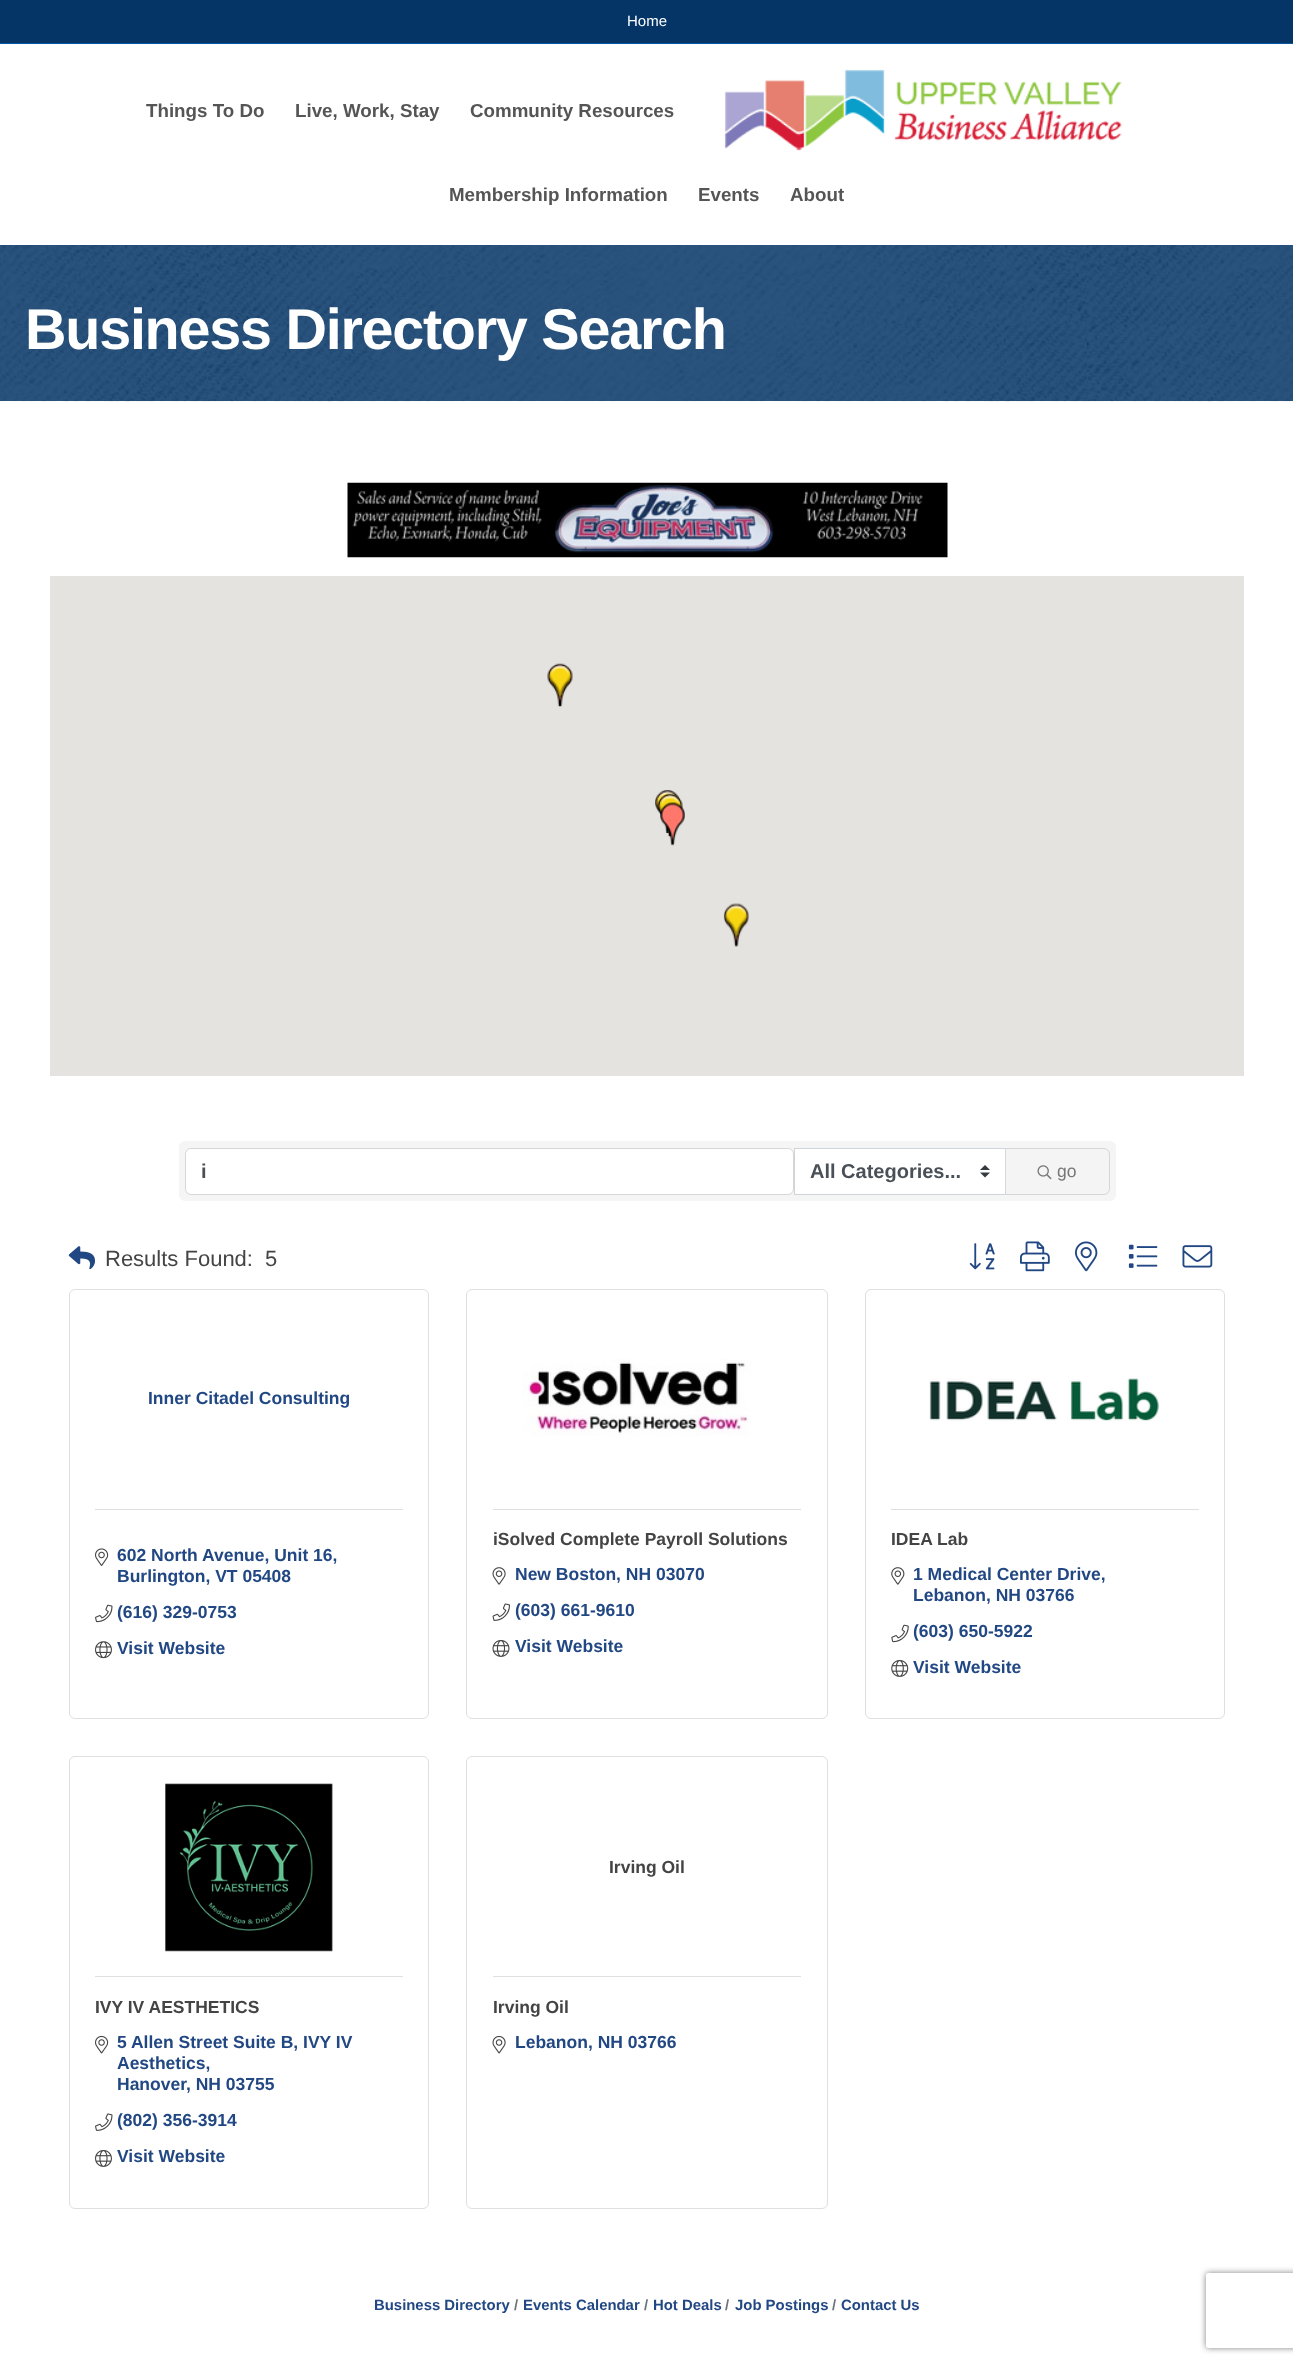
<svg xmlns="http://www.w3.org/2000/svg" width="1293" height="2365" viewBox="0 0 1293 2365">
  <defs>
    <clipPath id="clip1"><path d="M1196 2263H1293V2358H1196ZM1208.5 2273H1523.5C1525 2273 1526 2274 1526 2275.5V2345.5C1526 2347 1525 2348 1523.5 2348H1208.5C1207 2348 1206 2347 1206 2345.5V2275.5C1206 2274 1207 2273 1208.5 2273Z" clip-rule="evenodd"/></clipPath>
  </defs>
  <rect width="100%" height="100%" fill="rgb(255,255,255)"/>
  <rect x="0" y="0" width="1293" height="43" fill="rgb(4,53,102)"/>
  <rect x="0" y="43" width="1293" height="1" fill="rgb(7,86,166)"/>
  <text x="627" y="26" font-family="Liberation Sans" font-size="15" fill="rgb(255,255,255)">Home</text>
  <g font-family="Liberation Sans" font-size="18.75" font-weight="bold" fill="rgb(85,85,85)">
    <text x="146" y="117">Things To Do</text>
    <text x="295" y="117">Live, Work, Stay</text>
    <text x="470" y="117">Community Resources</text>
  </g>
  <image x="724" y="69" width="398" height="82" href="pic1.png"/>
  <g font-family="Liberation Sans" font-size="18.75" font-weight="bold" fill="rgb(85,85,85)">
    <text x="449" y="201">Membership Information</text>
    <text x="698" y="201">Events</text>
    <text x="790" y="201">About</text>
  </g>
  <image x="0" y="245" width="1293" height="157" href="pic2.png"/>
  <text x="25" y="349" font-family="Liberation Sans" font-size="57.5" font-weight="bold" letter-spacing="-1.25" fill="rgb(255,255,255)">Business Directory Search</text>
  <image x="347" y="482" width="601" height="76" href="pic3.png"/>
  <rect x="50" y="576" width="1194" height="500" fill="rgb(229,227,223)"/>
  <image x="547" y="663" width="26" height="44" href="pic4.png"/>
  <image x="655" y="790" width="25" height="43" href="pic5.png"/>
  <image x="657" y="793" width="26" height="44" href="pic6.png"/>
  <image x="660" y="802" width="25" height="44" href="pic7.png"/>
  <image x="723" y="903" width="26" height="44" href="pic8.png"/>
  <rect x="179" y="1141" width="937" height="60" rx="6" fill="rgb(245,245,245)"/>
  <rect x="186" y="1149" width="607" height="45" rx="5" fill="rgb(255,255,255)"/>
  <rect x="185.5" y="1148.5" width="608" height="46" rx="5.5" fill="none" stroke="rgba(0,0,0,0.12)"/>
  <text x="201" y="1178" font-family="Liberation Sans" font-size="20" font-weight="bold" fill="rgb(73,80,87)">i</text>
  <rect x="795" y="1149" width="210" height="45" fill="rgb(255,255,255)"/>
  <image x="980" y="1165" width="10" height="13" href="pic9.png"/>
  <rect x="794.5" y="1148.5" width="211" height="46" fill="none" stroke="rgb(206,212,218)"/>
  <text x="810" y="1178" font-family="Liberation Sans" font-size="20" font-weight="bold" fill="rgb(73,80,87)">All Categories...</text>
  <path d="M1005.5 1148.5H1104C1107 1148.5 1109.5 1151 1109.5 1154V1189C1109.5 1192 1107 1194.5 1104 1194.5H1005.5Z" fill="rgb(244,244,244)" stroke="rgb(214,214,214)"/>
  <image x="1037" y="1165" width="15" height="15" href="pic10.png"/>
  <text x="1057" y="1177" font-family="Liberation Sans" font-size="17.5" fill="rgb(119,119,119)">go</text>
  <image x="68" y="1246" width="27" height="24" href="pic11.png"/>
  <g font-family="Liberation Sans" font-size="22" fill="rgb(68,68,68)">
    <text x="105" y="1266">Results Found:</text>
    <text x="265" y="1266">5</text>
  </g>
  <image x="969" y="1243" width="26" height="27" href="pic12.png"/>
  <image x="1020" y="1241" width="30" height="31" href="pic13.png"/>
  <image x="1075" y="1241" width="23" height="31" href="pic14.png"/>
  <image x="1128" y="1244" width="30" height="24" href="pic15.png"/>
  <image x="1182" y="1245" width="31" height="23" href="pic16.png"/>
  <rect x="69.5" y="1289.5" width="359" height="429" rx="5.5" fill="none" stroke="rgb(223,223,223)"/>
  <text x="148" y="1404" font-family="Liberation Sans" font-size="17.5" font-weight="bold" fill="rgb(34,72,132)">Inner Citadel Consulting</text>
  <rect x="95" y="1509" width="308" height="1" fill="rgb(223,223,223)"/>
  <image x="95" y="1548" width="14" height="18" href="pic17.png"/>
  <g font-family="Liberation Sans" font-size="17.5" font-weight="bold" fill="rgb(34,72,132)">
    <text>
      <tspan x="117" y="1561">602 North Avenue, Unit 16,</tspan>
      <tspan x="117" y="1582">Burlington, VT 05408</tspan>
    </text>
  </g>
  <image x="95" y="1604" width="18" height="19" href="pic18.png"/>
  <text x="117" y="1618" font-family="Liberation Sans" font-size="17.5" font-weight="bold" fill="rgb(34,72,132)">(616) 329-0753</text>
  <image x="95" y="1641" width="17" height="18" href="pic19.png"/>
  <text x="117" y="1654" font-family="Liberation Sans" font-size="17.5" font-weight="bold" fill="rgb(34,72,132)">Visit Website</text>
  <rect x="466.5" y="1289.5" width="361" height="429" rx="5.5" fill="none" stroke="rgb(223,223,223)"/>
  <image x="522" y="1359" width="229" height="77" href="pic20.png"/>
  <rect x="493" y="1509" width="308" height="1" fill="rgb(223,223,223)"/>
  <text x="493" y="1545" font-family="Liberation Sans" font-size="17.5" font-weight="bold" fill="rgb(68,68,68)">iSolved Complete Payroll Solutions</text>
  <image x="492" y="1567" width="14" height="18" href="pic21.png"/>
  <text x="515" y="1580" font-family="Liberation Sans" font-size="17.5" font-weight="bold" fill="rgb(34,72,132)">New Boston, NH 03070</text>
  <image x="492" y="1603" width="18" height="18" href="pic22.png"/>
  <text x="515" y="1616" font-family="Liberation Sans" font-size="17.5" font-weight="bold" fill="rgb(34,72,132)">(603) 661-9610</text>
  <image x="492" y="1640" width="18" height="17" href="pic23.png"/>
  <text x="515" y="1652" font-family="Liberation Sans" font-size="17.5" font-weight="bold" fill="rgb(34,72,132)">Visit Website</text>
  <rect x="865.5" y="1289.5" width="359" height="429" rx="5.5" fill="none" stroke="rgb(223,223,223)"/>
  <image x="929" y="1378" width="230" height="43" href="pic24.png"/>
  <rect x="891" y="1509" width="308" height="1" fill="rgb(223,223,223)"/>
  <text x="891" y="1545" font-family="Liberation Sans" font-size="17.5" font-weight="bold" fill="rgb(68,68,68)">IDEA Lab</text>
  <image x="891" y="1567" width="14" height="18" href="pic25.png"/>
  <g font-family="Liberation Sans" font-size="17.5" font-weight="bold" fill="rgb(34,72,132)">
    <text>
      <tspan x="913" y="1580">1 Medical Center Drive,</tspan>
      <tspan x="913" y="1601">Lebanon, NH 03766</tspan>
    </text>
  </g>
  <image x="891" y="1624" width="18" height="19" href="pic26.png"/>
  <text x="913" y="1637" font-family="Liberation Sans" font-size="17.5" font-weight="bold" fill="rgb(34,72,132)">(603) 650-5922</text>
  <image x="891" y="1660" width="18" height="17" href="pic27.png"/>
  <text x="913" y="1673" font-family="Liberation Sans" font-size="17.5" font-weight="bold" fill="rgb(34,72,132)">Visit Website</text>
  <rect x="466.5" y="1756.5" width="361" height="452" rx="5.5" fill="none" stroke="rgb(223,223,223)"/>
  <text x="609" y="1873" font-family="Liberation Sans" font-size="17.5" font-weight="bold" fill="rgb(68,68,68)">Irving Oil</text>
  <rect x="493" y="1976" width="308" height="1" fill="rgb(223,223,223)"/>
  <text x="493" y="2013" font-family="Liberation Sans" font-size="17.5" font-weight="bold" fill="rgb(68,68,68)">Irving Oil</text>
  <image x="492" y="2035" width="14" height="19" href="pic28.png"/>
  <text x="515" y="2048" font-family="Liberation Sans" font-size="17.5" font-weight="bold" fill="rgb(34,72,132)">Lebanon, NH 03766</text>
  <rect x="69.5" y="1756.5" width="359" height="452" rx="5.5" fill="none" stroke="rgb(223,223,223)"/>
  <image x="165" y="1783" width="168" height="169" href="pic29.png"/>
  <rect x="95" y="1976" width="308" height="1" fill="rgb(223,223,223)"/>
  <text x="95" y="2013" font-family="Liberation Sans" font-size="17.5" font-weight="bold" fill="rgb(68,68,68)">IVY IV AESTHETICS</text>
  <image x="95" y="2035" width="14" height="19" href="pic30.png"/>
  <g font-family="Liberation Sans" font-size="17.5" font-weight="bold" fill="rgb(34,72,132)">
    <text>
      <tspan x="117" y="2048">5 Allen Street Suite B, IVY IV</tspan>
      <tspan x="117" y="2069">Aesthetics,</tspan>
      <tspan x="117" y="2090">Hanover</tspan>
    </text>
    <text x="186" y="2090">, NH 03755</text>
  </g>
  <image x="95" y="2113" width="18" height="18" href="pic31.png"/>
  <text x="117" y="2126" font-family="Liberation Sans" font-size="17.5" font-weight="bold" fill="rgb(34,72,132)">(802) 356-3914</text>
  <image x="95" y="2150" width="17" height="17" href="pic32.png"/>
  <text x="117" y="2162" font-family="Liberation Sans" font-size="17.5" font-weight="bold" fill="rgb(34,72,132)">Visit Website</text>
  <text x="374" y="2310" font-family="Liberation Sans" font-size="14.9" font-weight="bold" fill="rgb(34,72,132)">Business Directory</text>
  <text x="514" y="2310" font-family="Liberation Sans" font-size="14.9" font-weight="bold" fill="rgb(108,117,125)">/</text>
  <text x="523" y="2310" font-family="Liberation Sans" font-size="14.9" font-weight="bold" fill="rgb(34,72,132)">Events Calendar</text>
  <text x="644" y="2310" font-family="Liberation Sans" font-size="14.9" font-weight="bold" fill="rgb(108,117,125)">/</text>
  <text x="653" y="2310" font-family="Liberation Sans" font-size="14.9" font-weight="bold" fill="rgb(34,72,132)">Hot Deals</text>
  <text x="725" y="2310" font-family="Liberation Sans" font-size="14.9" font-weight="bold" fill="rgb(108,117,125)">/</text>
  <text x="735" y="2310" font-family="Liberation Sans" font-size="14.9" font-weight="bold" fill="rgb(34,72,132)">Job Postings</text>
  <text x="832" y="2310" font-family="Liberation Sans" font-size="14.9" font-weight="bold" fill="rgb(108,117,125)">/</text>
  <text x="841" y="2310" font-family="Liberation Sans" font-size="14.9" font-weight="bold" fill="rgb(34,72,132)">Contact Us</text>
  <g clip-path="url(#clip1)">
    <rect x="1206" y="2273" width="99" height="75" rx="2.5" fill="rgb(128,128,128)" filter="blur(3px)"/>
  </g>
</svg>
